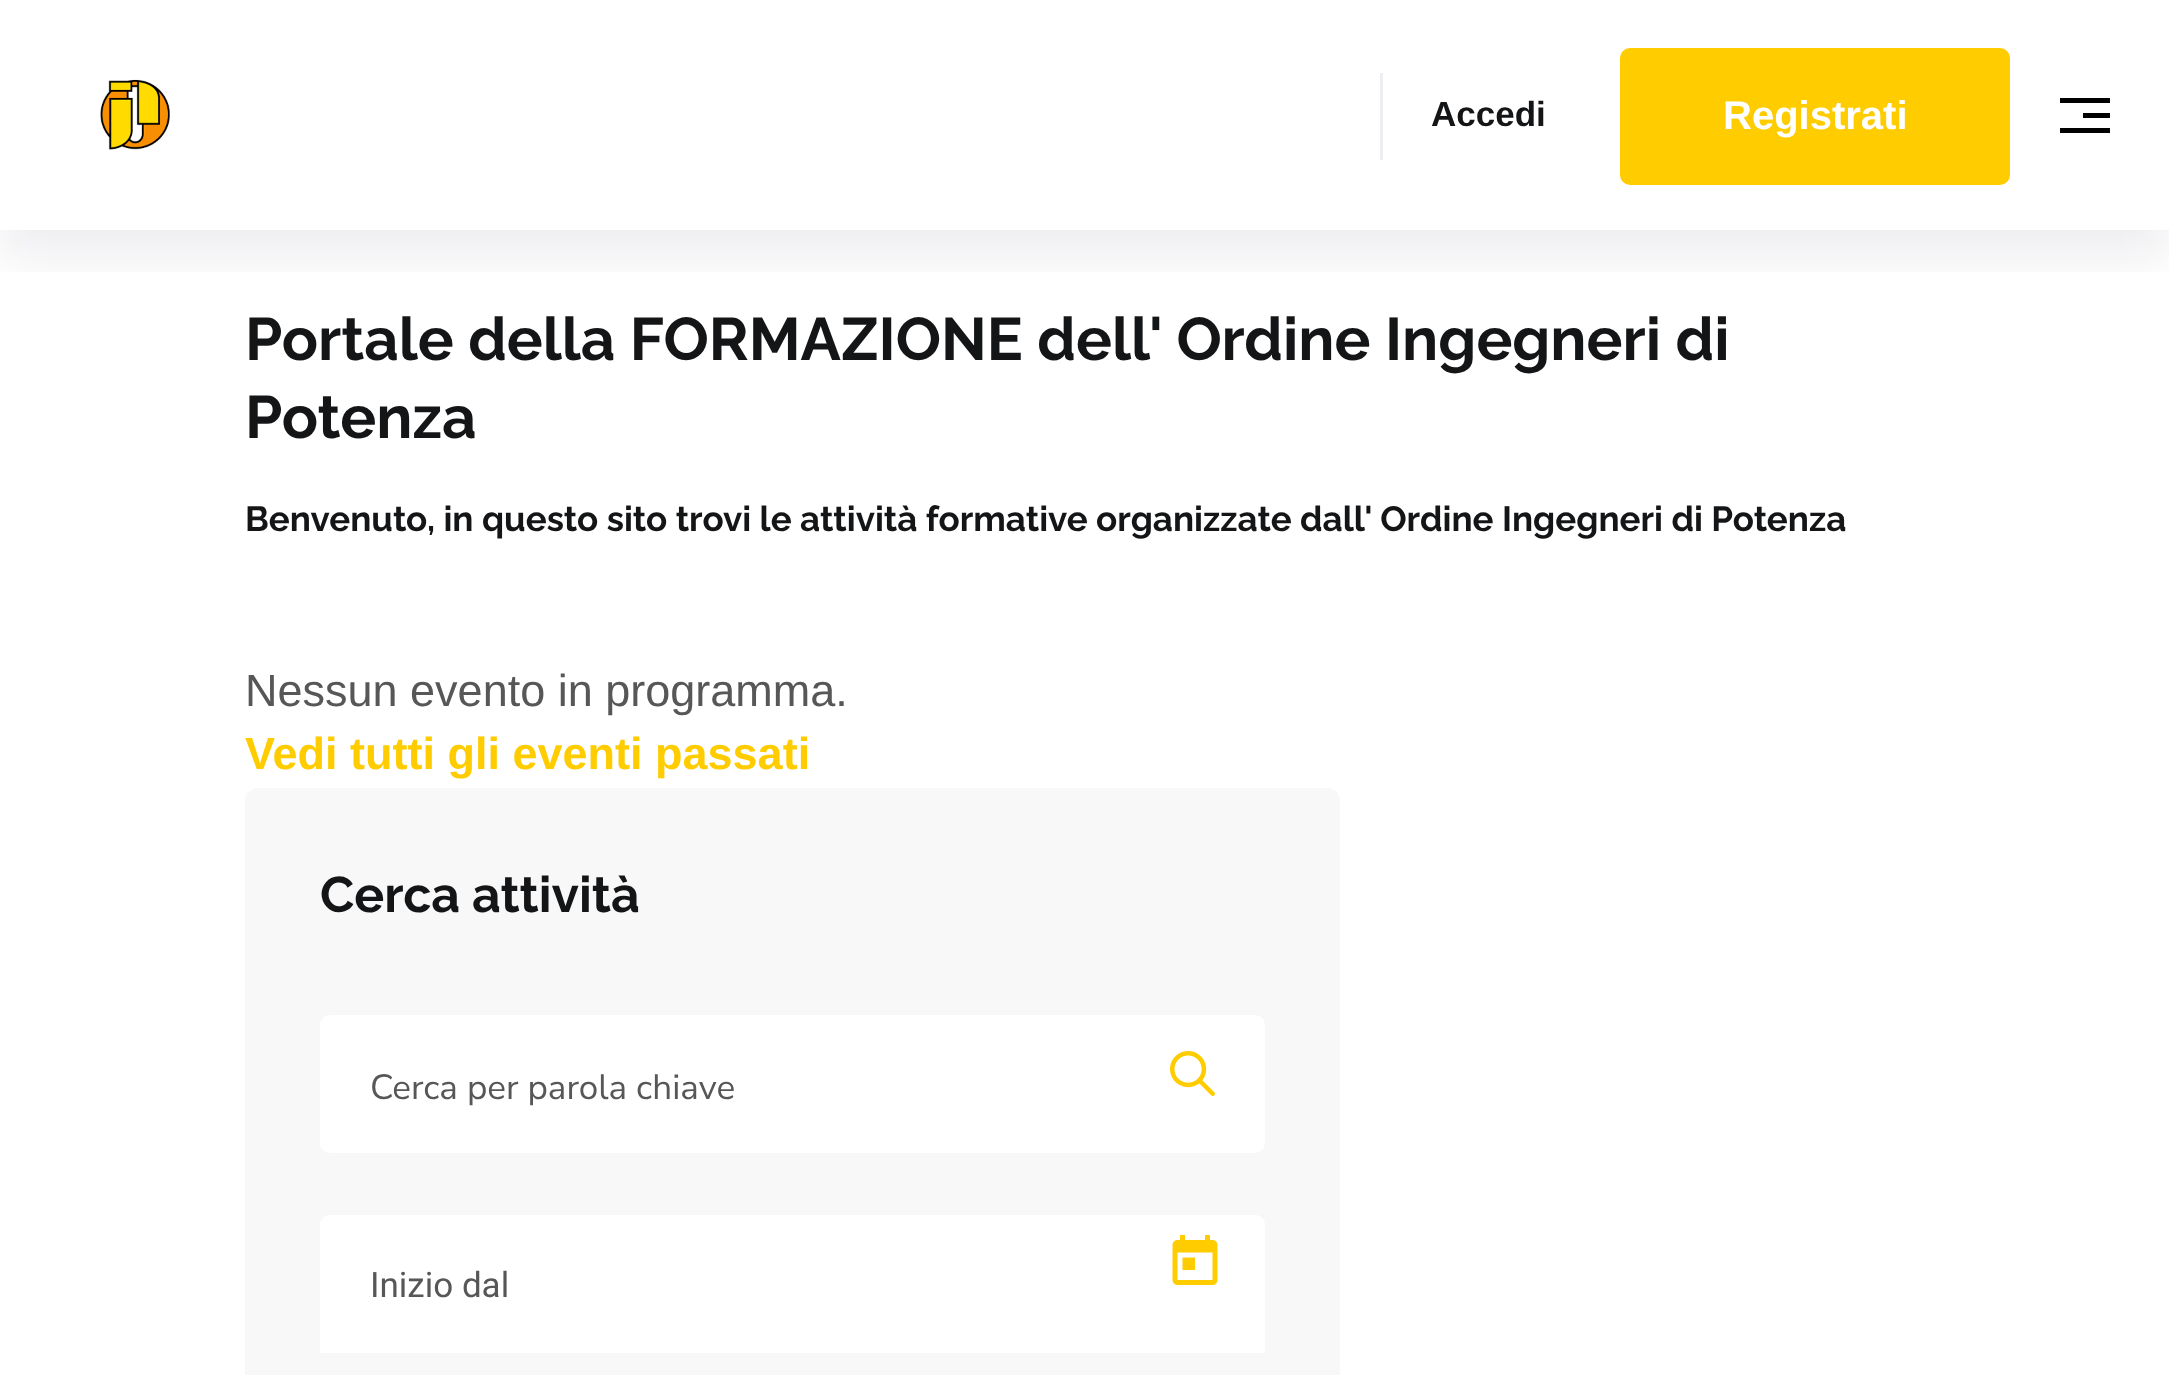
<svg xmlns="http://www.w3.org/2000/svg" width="2169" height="1375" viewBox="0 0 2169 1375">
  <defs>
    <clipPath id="clip1"><rect x="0" y="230" width="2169" height="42"/></clipPath>
  </defs>
  <rect width="100%" height="100%" fill="rgb(255,255,255)"/>
  <g clip-path="url(#clip1)">
    <rect x="0" y="25" width="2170" height="230" fill="rgba(8,0,42,0.08)" filter="blur(25px)"/>
  </g>
  <image x="100" y="79" width="70" height="71" href="pic1.png"/>
  <rect x="1380" y="73" width="3" height="87" fill="rgb(237,238,242)"/>
  <text x="1431" y="126" font-family="Liberation Sans" font-size="35" font-weight="bold" fill="rgb(20,21,23)">Accedi</text>
  <rect x="1620" y="48" width="390" height="137" rx="10" fill="rgb(255,204,0)"/>
  <text x="1723" y="129" font-family="Liberation Sans" font-size="40" font-weight="bold" fill="rgb(255,255,255)">Registrati</text>
  <rect x="2060" y="98" width="50" height="5" fill="rgb(0,0,0)"/>
  <rect x="2083" y="113" width="27" height="5" fill="rgb(0,0,0)"/>
  <rect x="2060" y="128" width="50" height="5" fill="rgb(0,0,0)"/>
  <g font-family="Raleway" font-size="60" font-weight="bold" fill="rgb(20,21,23)">
    <text>
      <tspan x="245" y="360">Portale della FORMAZIONE dell' Ordine Ingegneri di</tspan>
      <tspan x="245" y="438">Potenza</tspan>
    </text>
  </g>
  <text x="245" y="531" font-family="Raleway" font-size="35" font-weight="bold" fill="rgb(20,21,23)">Benvenuto, in questo sito trovi le attività formative organizzate dall' Ordine Ingegneri di Potenza</text>
  <text x="245" y="706" font-family="Liberation Sans" font-size="45" fill="rgb(87,87,87)">Nessun evento in programma.</text>
  <text x="245" y="769" font-family="Liberation Sans" font-size="45" font-weight="bold" fill="rgb(255,204,0)">Vedi tutti gli eventi passati</text>
  <rect x="245" y="788" width="1095" height="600" rx="13" fill="rgb(248,248,249)"/>
  <text x="320" y="912" font-family="Raleway" font-size="50" font-weight="bold" fill="rgb(20,21,23)">Cerca attività</text>
  <rect x="320" y="1015" width="945" height="138" rx="10" fill="rgb(255,255,255)"/>
  <text x="370" y="1099" font-family="Nunito Sans" font-size="35" fill="rgb(87,87,87)">Cerca per parola chiave</text>
  <image x="1170" y="1051" width="45" height="45" href="pic2.png"/>
  <path d="M330 1215H1255C1260.5 1215 1265 1219.5 1265 1225V1353H320V1225C320 1219.5 324.5 1215 330 1215Z" fill="rgb(255,255,255)"/>
  <text x="370" y="1297" font-family="Roboto" font-size="35" fill="rgb(87,87,87)">Inizio dal</text>
  <image x="1172" y="1235" width="46" height="50" href="pic3.png"/>
</svg>
